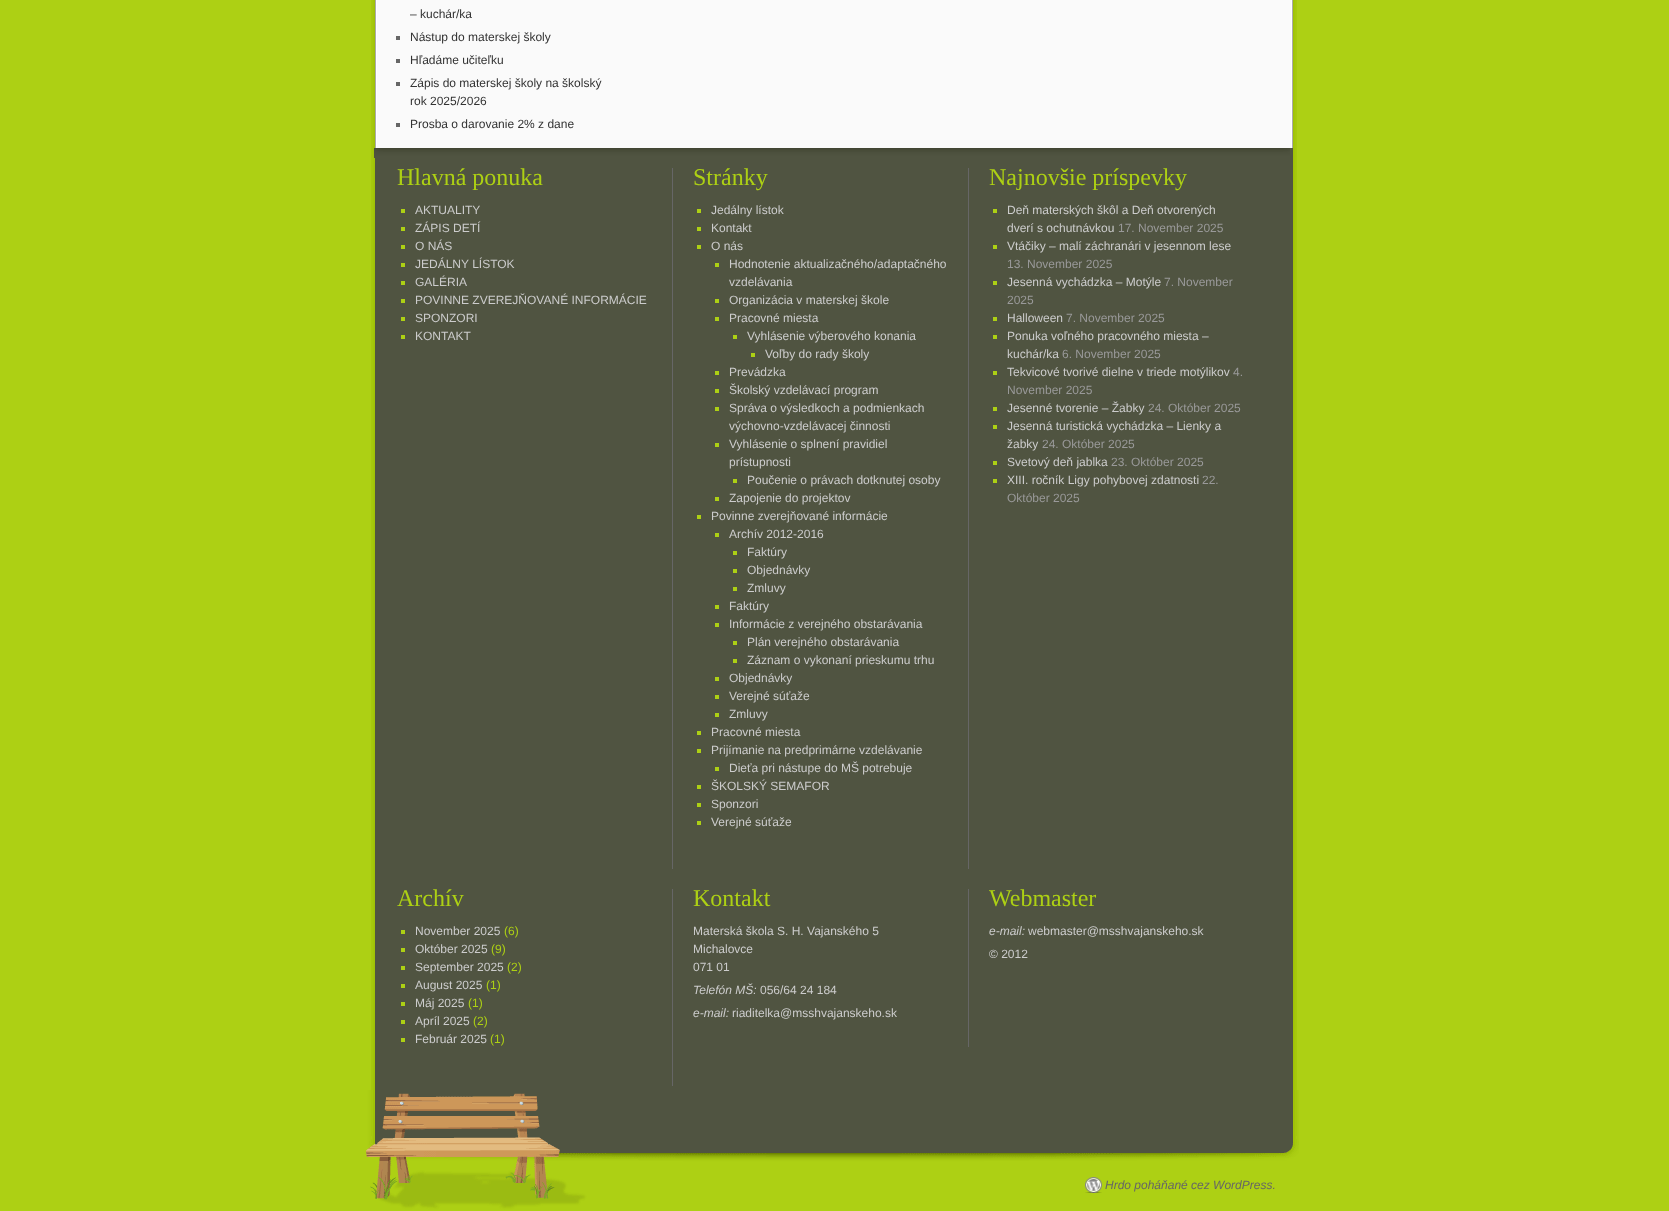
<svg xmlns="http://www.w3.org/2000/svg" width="1669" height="1211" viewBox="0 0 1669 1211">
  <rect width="100%" height="100%" fill="rgb(173,208,20)"/>
  <image x="371" y="0" width="926" height="148" href="pic1.png"/>
  <text x="410" y="18" font-family="Liberation Sans" font-size="12" fill="rgb(51,51,51)">– kuchár/ka</text>
  <rect x="396" y="36" width="4" height="4" fill="rgb(102,102,102)"/>
  <text x="410" y="41" font-family="Liberation Sans" font-size="12" fill="rgb(51,51,51)">Nástup do materskej školy</text>
  <rect x="396" y="59" width="4" height="4" fill="rgb(102,102,102)"/>
  <text x="410" y="64" font-family="Liberation Sans" font-size="12" fill="rgb(51,51,51)">Hľadáme učiteľku</text>
  <rect x="396" y="82" width="4" height="4" fill="rgb(102,102,102)"/>
  <g font-family="Liberation Sans" font-size="12" fill="rgb(51,51,51)">
    <text>
      <tspan x="410" y="87">Zápis do materskej školy na školský</tspan>
      <tspan x="410" y="105">rok 2025/2026</tspan>
    </text>
  </g>
  <rect x="396" y="123" width="4" height="4" fill="rgb(102,102,102)"/>
  <text x="410" y="128" font-family="Liberation Sans" font-size="12" fill="rgb(51,51,51)">Prosba o darovanie 2% z dane</text>
  <image x="371" y="148" width="926" height="942" href="pic2.png"/>
  <image x="374" y="148" width="916" height="10" href="pic3.png"/>
  <image x="366" y="1090" width="933" height="121" href="pic4.png"/>
  <text x="397" y="185" font-family="Liberation Serif" font-size="24" fill="rgb(173,208,20)">Hlavná ponuka</text>
  <rect x="401" y="209" width="4" height="4" fill="rgb(173,208,20)"/>
  <text x="415" y="214" font-family="Liberation Sans" font-size="12" fill="rgb(204,204,204)">AKTUALITY</text>
  <rect x="401" y="227" width="4" height="4" fill="rgb(173,208,20)"/>
  <text x="415" y="232" font-family="Liberation Sans" font-size="12" fill="rgb(204,204,204)">ZÁPIS DETÍ</text>
  <rect x="401" y="245" width="4" height="4" fill="rgb(173,208,20)"/>
  <text x="415" y="250" font-family="Liberation Sans" font-size="12" fill="rgb(204,204,204)">O NÁS</text>
  <rect x="401" y="263" width="4" height="4" fill="rgb(173,208,20)"/>
  <text x="415" y="268" font-family="Liberation Sans" font-size="12" fill="rgb(204,204,204)">JEDÁLNY LÍSTOK</text>
  <rect x="401" y="281" width="4" height="4" fill="rgb(173,208,20)"/>
  <text x="415" y="286" font-family="Liberation Sans" font-size="12" fill="rgb(204,204,204)">GALÉRIA</text>
  <rect x="401" y="299" width="4" height="4" fill="rgb(173,208,20)"/>
  <text x="415" y="304" font-family="Liberation Sans" font-size="12" fill="rgb(204,204,204)">POVINNE ZVEREJŇOVANÉ INFORMÁCIE</text>
  <rect x="401" y="317" width="4" height="4" fill="rgb(173,208,20)"/>
  <text x="415" y="322" font-family="Liberation Sans" font-size="12" fill="rgb(204,204,204)">SPONZORI</text>
  <rect x="401" y="335" width="4" height="4" fill="rgb(173,208,20)"/>
  <text x="415" y="340" font-family="Liberation Sans" font-size="12" fill="rgb(204,204,204)">KONTAKT</text>
  <rect x="968" y="168" width="1" height="701" fill="rgb(102,102,102)"/>
  <rect x="672" y="168" width="1" height="701" fill="rgb(102,102,102)"/>
  <text x="693" y="185" font-family="Liberation Serif" font-size="24" fill="rgb(173,208,20)">Stránky</text>
  <rect x="697" y="209" width="4" height="4" fill="rgb(173,208,20)"/>
  <text x="711" y="214" font-family="Liberation Sans" font-size="12" fill="rgb(204,204,204)">Jedálny lístok</text>
  <rect x="697" y="227" width="4" height="4" fill="rgb(173,208,20)"/>
  <text x="711" y="232" font-family="Liberation Sans" font-size="12" fill="rgb(204,204,204)">Kontakt</text>
  <rect x="697" y="245" width="4" height="4" fill="rgb(173,208,20)"/>
  <text x="711" y="250" font-family="Liberation Sans" font-size="12" fill="rgb(204,204,204)">O nás</text>
  <rect x="715" y="263" width="4" height="4" fill="rgb(173,208,20)"/>
  <g font-family="Liberation Sans" font-size="12" fill="rgb(204,204,204)">
    <text>
      <tspan x="729" y="268">Hodnotenie aktualizačného/adaptačného</tspan>
      <tspan x="729" y="286">vzdelávania</tspan>
    </text>
  </g>
  <rect x="715" y="299" width="4" height="4" fill="rgb(173,208,20)"/>
  <text x="729" y="304" font-family="Liberation Sans" font-size="12" fill="rgb(204,204,204)">Organizácia v materskej škole</text>
  <rect x="715" y="317" width="4" height="4" fill="rgb(173,208,20)"/>
  <text x="729" y="322" font-family="Liberation Sans" font-size="12" fill="rgb(204,204,204)">Pracovné miesta</text>
  <rect x="733" y="335" width="4" height="4" fill="rgb(173,208,20)"/>
  <text x="747" y="340" font-family="Liberation Sans" font-size="12" fill="rgb(204,204,204)">Vyhlásenie výberového konania</text>
  <rect x="751" y="353" width="4" height="4" fill="rgb(173,208,20)"/>
  <text x="765" y="358" font-family="Liberation Sans" font-size="12" fill="rgb(204,204,204)">Voľby do rady školy</text>
  <rect x="715" y="371" width="4" height="4" fill="rgb(173,208,20)"/>
  <text x="729" y="376" font-family="Liberation Sans" font-size="12" fill="rgb(204,204,204)">Prevádzka</text>
  <rect x="715" y="389" width="4" height="4" fill="rgb(173,208,20)"/>
  <text x="729" y="394" font-family="Liberation Sans" font-size="12" fill="rgb(204,204,204)">Školský vzdelávací program</text>
  <rect x="715" y="407" width="4" height="4" fill="rgb(173,208,20)"/>
  <g font-family="Liberation Sans" font-size="12" fill="rgb(204,204,204)">
    <text>
      <tspan x="729" y="412">Správa o výsledkoch a podmienkach</tspan>
      <tspan x="729" y="430">výchovno-vzdelávacej činnosti</tspan>
    </text>
  </g>
  <rect x="715" y="443" width="4" height="4" fill="rgb(173,208,20)"/>
  <g font-family="Liberation Sans" font-size="12" fill="rgb(204,204,204)">
    <text>
      <tspan x="729" y="448">Vyhlásenie o splnení pravidiel</tspan>
      <tspan x="729" y="466">prístupnosti</tspan>
    </text>
  </g>
  <rect x="733" y="479" width="4" height="4" fill="rgb(173,208,20)"/>
  <text x="747" y="484" font-family="Liberation Sans" font-size="12" fill="rgb(204,204,204)">Poučenie o právach dotknutej osoby</text>
  <rect x="715" y="497" width="4" height="4" fill="rgb(173,208,20)"/>
  <text x="729" y="502" font-family="Liberation Sans" font-size="12" fill="rgb(204,204,204)">Zapojenie do projektov</text>
  <rect x="697" y="515" width="4" height="4" fill="rgb(173,208,20)"/>
  <text x="711" y="520" font-family="Liberation Sans" font-size="12" fill="rgb(204,204,204)">Povinne zverejňované informácie</text>
  <rect x="715" y="533" width="4" height="4" fill="rgb(173,208,20)"/>
  <text x="729" y="538" font-family="Liberation Sans" font-size="12" fill="rgb(204,204,204)">Archív 2012-2016</text>
  <rect x="733" y="551" width="4" height="4" fill="rgb(173,208,20)"/>
  <text x="747" y="556" font-family="Liberation Sans" font-size="12" fill="rgb(204,204,204)">Faktúry</text>
  <rect x="733" y="569" width="4" height="4" fill="rgb(173,208,20)"/>
  <text x="747" y="574" font-family="Liberation Sans" font-size="12" fill="rgb(204,204,204)">Objednávky</text>
  <rect x="733" y="587" width="4" height="4" fill="rgb(173,208,20)"/>
  <text x="747" y="592" font-family="Liberation Sans" font-size="12" fill="rgb(204,204,204)">Zmluvy</text>
  <rect x="715" y="605" width="4" height="4" fill="rgb(173,208,20)"/>
  <text x="729" y="610" font-family="Liberation Sans" font-size="12" fill="rgb(204,204,204)">Faktúry</text>
  <rect x="715" y="623" width="4" height="4" fill="rgb(173,208,20)"/>
  <text x="729" y="628" font-family="Liberation Sans" font-size="12" fill="rgb(204,204,204)">Informácie z verejného obstarávania</text>
  <rect x="733" y="641" width="4" height="4" fill="rgb(173,208,20)"/>
  <text x="747" y="646" font-family="Liberation Sans" font-size="12" fill="rgb(204,204,204)">Plán verejného obstarávania</text>
  <rect x="733" y="659" width="4" height="4" fill="rgb(173,208,20)"/>
  <text x="747" y="664" font-family="Liberation Sans" font-size="12" fill="rgb(204,204,204)">Záznam o vykonaní prieskumu trhu</text>
  <rect x="715" y="677" width="4" height="4" fill="rgb(173,208,20)"/>
  <text x="729" y="682" font-family="Liberation Sans" font-size="12" fill="rgb(204,204,204)">Objednávky</text>
  <rect x="715" y="695" width="4" height="4" fill="rgb(173,208,20)"/>
  <text x="729" y="700" font-family="Liberation Sans" font-size="12" fill="rgb(204,204,204)">Verejné súťaže</text>
  <rect x="715" y="713" width="4" height="4" fill="rgb(173,208,20)"/>
  <text x="729" y="718" font-family="Liberation Sans" font-size="12" fill="rgb(204,204,204)">Zmluvy</text>
  <rect x="697" y="731" width="4" height="4" fill="rgb(173,208,20)"/>
  <text x="711" y="736" font-family="Liberation Sans" font-size="12" fill="rgb(204,204,204)">Pracovné miesta</text>
  <rect x="697" y="749" width="4" height="4" fill="rgb(173,208,20)"/>
  <text x="711" y="754" font-family="Liberation Sans" font-size="12" fill="rgb(204,204,204)">Prijímanie na predprimárne vzdelávanie</text>
  <rect x="715" y="767" width="4" height="4" fill="rgb(173,208,20)"/>
  <text x="729" y="772" font-family="Liberation Sans" font-size="12" fill="rgb(204,204,204)">Dieťa pri nástupe do MŠ potrebuje</text>
  <rect x="697" y="785" width="4" height="4" fill="rgb(173,208,20)"/>
  <text x="711" y="790" font-family="Liberation Sans" font-size="12" fill="rgb(204,204,204)">ŠKOLSKÝ SEMAFOR</text>
  <rect x="697" y="803" width="4" height="4" fill="rgb(173,208,20)"/>
  <text x="711" y="808" font-family="Liberation Sans" font-size="12" fill="rgb(204,204,204)">Sponzori</text>
  <rect x="697" y="821" width="4" height="4" fill="rgb(173,208,20)"/>
  <text x="711" y="826" font-family="Liberation Sans" font-size="12" fill="rgb(204,204,204)">Verejné súťaže</text>
  <text x="989" y="185" font-family="Liberation Serif" font-size="24" fill="rgb(173,208,20)">Najnovšie príspevky</text>
  <rect x="993" y="209" width="4" height="4" fill="rgb(173,208,20)"/>
  <g font-family="Liberation Sans" font-size="12" fill="rgb(204,204,204)">
    <text>
      <tspan x="1007" y="214">Deň materských škôl a Deň otvorených</tspan>
      <tspan x="1007" y="232">dverí s ochutnávkou</tspan>
    </text>
  </g>
  <text x="1118" y="232" font-family="Liberation Sans" font-size="12" fill="rgb(153,153,153)">17. November 2025</text>
  <rect x="993" y="245" width="4" height="4" fill="rgb(173,208,20)"/>
  <text x="1007" y="250" font-family="Liberation Sans" font-size="12" fill="rgb(204,204,204)">Vtáčiky – malí záchranári v jesennom lese</text>
  <text x="1007" y="268" font-family="Liberation Sans" font-size="12" fill="rgb(153,153,153)">13. November 2025</text>
  <rect x="993" y="281" width="4" height="4" fill="rgb(173,208,20)"/>
  <text x="1007" y="286" font-family="Liberation Sans" font-size="12" fill="rgb(204,204,204)">Jesenná vychádzka – Motýle</text>
  <g font-family="Liberation Sans" font-size="12" fill="rgb(153,153,153)">
    <text x="1164" y="286">7. November</text>
    <text x="1007" y="304">2025</text>
  </g>
  <rect x="993" y="317" width="4" height="4" fill="rgb(173,208,20)"/>
  <text x="1007" y="322" font-family="Liberation Sans" font-size="12" fill="rgb(204,204,204)">Halloween</text>
  <text x="1066" y="322" font-family="Liberation Sans" font-size="12" fill="rgb(153,153,153)">7. November 2025</text>
  <rect x="993" y="335" width="4" height="4" fill="rgb(173,208,20)"/>
  <g font-family="Liberation Sans" font-size="12" fill="rgb(204,204,204)">
    <text>
      <tspan x="1007" y="340">Ponuka voľného pracovného miesta –</tspan>
      <tspan x="1007" y="358">kuchár/ka</tspan>
    </text>
  </g>
  <text x="1062" y="358" font-family="Liberation Sans" font-size="12" fill="rgb(153,153,153)">6. November 2025</text>
  <rect x="993" y="371" width="4" height="4" fill="rgb(173,208,20)"/>
  <text x="1007" y="376" font-family="Liberation Sans" font-size="12" fill="rgb(204,204,204)">Tekvicové tvorivé dielne v triede motýlikov</text>
  <g font-family="Liberation Sans" font-size="12" fill="rgb(153,153,153)">
    <text x="1233" y="376">4.</text>
    <text x="1007" y="394">November 2025</text>
  </g>
  <rect x="993" y="407" width="4" height="4" fill="rgb(173,208,20)"/>
  <text x="1007" y="412" font-family="Liberation Sans" font-size="12" fill="rgb(204,204,204)">Jesenné tvorenie – Žabky</text>
  <text x="1148" y="412" font-family="Liberation Sans" font-size="12" fill="rgb(153,153,153)">24. Október 2025</text>
  <rect x="993" y="425" width="4" height="4" fill="rgb(173,208,20)"/>
  <g font-family="Liberation Sans" font-size="12" fill="rgb(204,204,204)">
    <text>
      <tspan x="1007" y="430">Jesenná turistická vychádzka – Lienky a</tspan>
      <tspan x="1007" y="448">žabky</tspan>
    </text>
  </g>
  <text x="1042" y="448" font-family="Liberation Sans" font-size="12" fill="rgb(153,153,153)">24. Október 2025</text>
  <rect x="993" y="461" width="4" height="4" fill="rgb(173,208,20)"/>
  <text x="1007" y="466" font-family="Liberation Sans" font-size="12" fill="rgb(204,204,204)">Svetový deň jablka</text>
  <text x="1111" y="466" font-family="Liberation Sans" font-size="12" fill="rgb(153,153,153)">23. Október 2025</text>
  <rect x="993" y="479" width="4" height="4" fill="rgb(173,208,20)"/>
  <text x="1007" y="484" font-family="Liberation Sans" font-size="12" fill="rgb(204,204,204)">XIII. ročník Ligy pohybovej zdatnosti</text>
  <g font-family="Liberation Sans" font-size="12" fill="rgb(153,153,153)">
    <text x="1202" y="484">22.</text>
    <text x="1007" y="502">Október 2025</text>
  </g>
  <rect x="672" y="889" width="1" height="197" fill="rgb(102,102,102)"/>
  <text x="397" y="906" font-family="Liberation Serif" font-size="24" fill="rgb(173,208,20)">Archív</text>
  <rect x="401" y="930" width="4" height="4" fill="rgb(173,208,20)"/>
  <text x="415" y="935" font-family="Liberation Sans" font-size="12" fill="rgb(204,204,204)">November 2025</text>
  <text x="504" y="935" font-family="Liberation Sans" font-size="12" fill="rgb(173,208,20)">(6)</text>
  <rect x="401" y="948" width="4" height="4" fill="rgb(173,208,20)"/>
  <text x="415" y="953" font-family="Liberation Sans" font-size="12" fill="rgb(204,204,204)">Október 2025</text>
  <text x="491" y="953" font-family="Liberation Sans" font-size="12" fill="rgb(173,208,20)">(9)</text>
  <rect x="401" y="966" width="4" height="4" fill="rgb(173,208,20)"/>
  <text x="415" y="971" font-family="Liberation Sans" font-size="12" fill="rgb(204,204,204)">September 2025</text>
  <text x="507" y="971" font-family="Liberation Sans" font-size="12" fill="rgb(173,208,20)">(2)</text>
  <rect x="401" y="984" width="4" height="4" fill="rgb(173,208,20)"/>
  <text x="415" y="989" font-family="Liberation Sans" font-size="12" fill="rgb(204,204,204)">August 2025</text>
  <text x="486" y="989" font-family="Liberation Sans" font-size="12" fill="rgb(173,208,20)">(1)</text>
  <rect x="401" y="1002" width="4" height="4" fill="rgb(173,208,20)"/>
  <text x="415" y="1007" font-family="Liberation Sans" font-size="12" fill="rgb(204,204,204)">Máj 2025</text>
  <text x="468" y="1007" font-family="Liberation Sans" font-size="12" fill="rgb(173,208,20)">(1)</text>
  <rect x="401" y="1020" width="4" height="4" fill="rgb(173,208,20)"/>
  <text x="415" y="1025" font-family="Liberation Sans" font-size="12" fill="rgb(204,204,204)">Apríl 2025</text>
  <text x="473" y="1025" font-family="Liberation Sans" font-size="12" fill="rgb(173,208,20)">(2)</text>
  <rect x="401" y="1038" width="4" height="4" fill="rgb(173,208,20)"/>
  <text x="415" y="1043" font-family="Liberation Sans" font-size="12" fill="rgb(204,204,204)">Február 2025</text>
  <text x="490" y="1043" font-family="Liberation Sans" font-size="12" fill="rgb(173,208,20)">(1)</text>
  <rect x="968" y="889" width="1" height="158" fill="rgb(102,102,102)"/>
  <text x="693" y="906" font-family="Liberation Serif" font-size="24" fill="rgb(173,208,20)">Kontakt</text>
  <g font-family="Liberation Sans" font-size="12" fill="rgb(204,204,204)">
    <text>
      <tspan x="693" y="935">Materská škola S. H. Vajanského 5</tspan>
      <tspan x="693" y="953">Michalovce</tspan>
      <tspan x="693" y="971">071 01</tspan>
    </text>
  </g>
  <text x="693" y="994" font-family="Liberation Sans" font-size="12" font-style="italic" fill="rgb(204,204,204)">Telefón MŠ:</text>
  <text x="760" y="994" font-family="Liberation Sans" font-size="12" fill="rgb(204,204,204)">056/64 24 184</text>
  <text x="693" y="1017" font-family="Liberation Sans" font-size="12" font-style="italic" fill="rgb(204,204,204)">e-mail:</text>
  <text x="732" y="1017" font-family="Liberation Sans" font-size="12" fill="rgb(204,204,204)">riaditelka@msshvajanskeho.sk</text>
  <text x="989" y="906" font-family="Liberation Serif" font-size="24" fill="rgb(173,208,20)">Webmaster</text>
  <text x="989" y="935" font-family="Liberation Sans" font-size="12" font-style="italic" fill="rgb(204,204,204)">e-mail:</text>
  <g font-family="Liberation Sans" font-size="12" fill="rgb(204,204,204)">
    <text x="1028" y="935">webmaster@msshvajanskeho.sk</text>
    <text x="989" y="958">© 2012</text>
  </g>
  <image x="1085" y="1177" width="17" height="16" href="pic5.png"/>
  <text x="1105" y="1189" font-family="Liberation Sans" font-size="12" font-style="italic" fill="rgb(102,102,102)">Hrdo poháňané cez WordPress.</text>
</svg>
